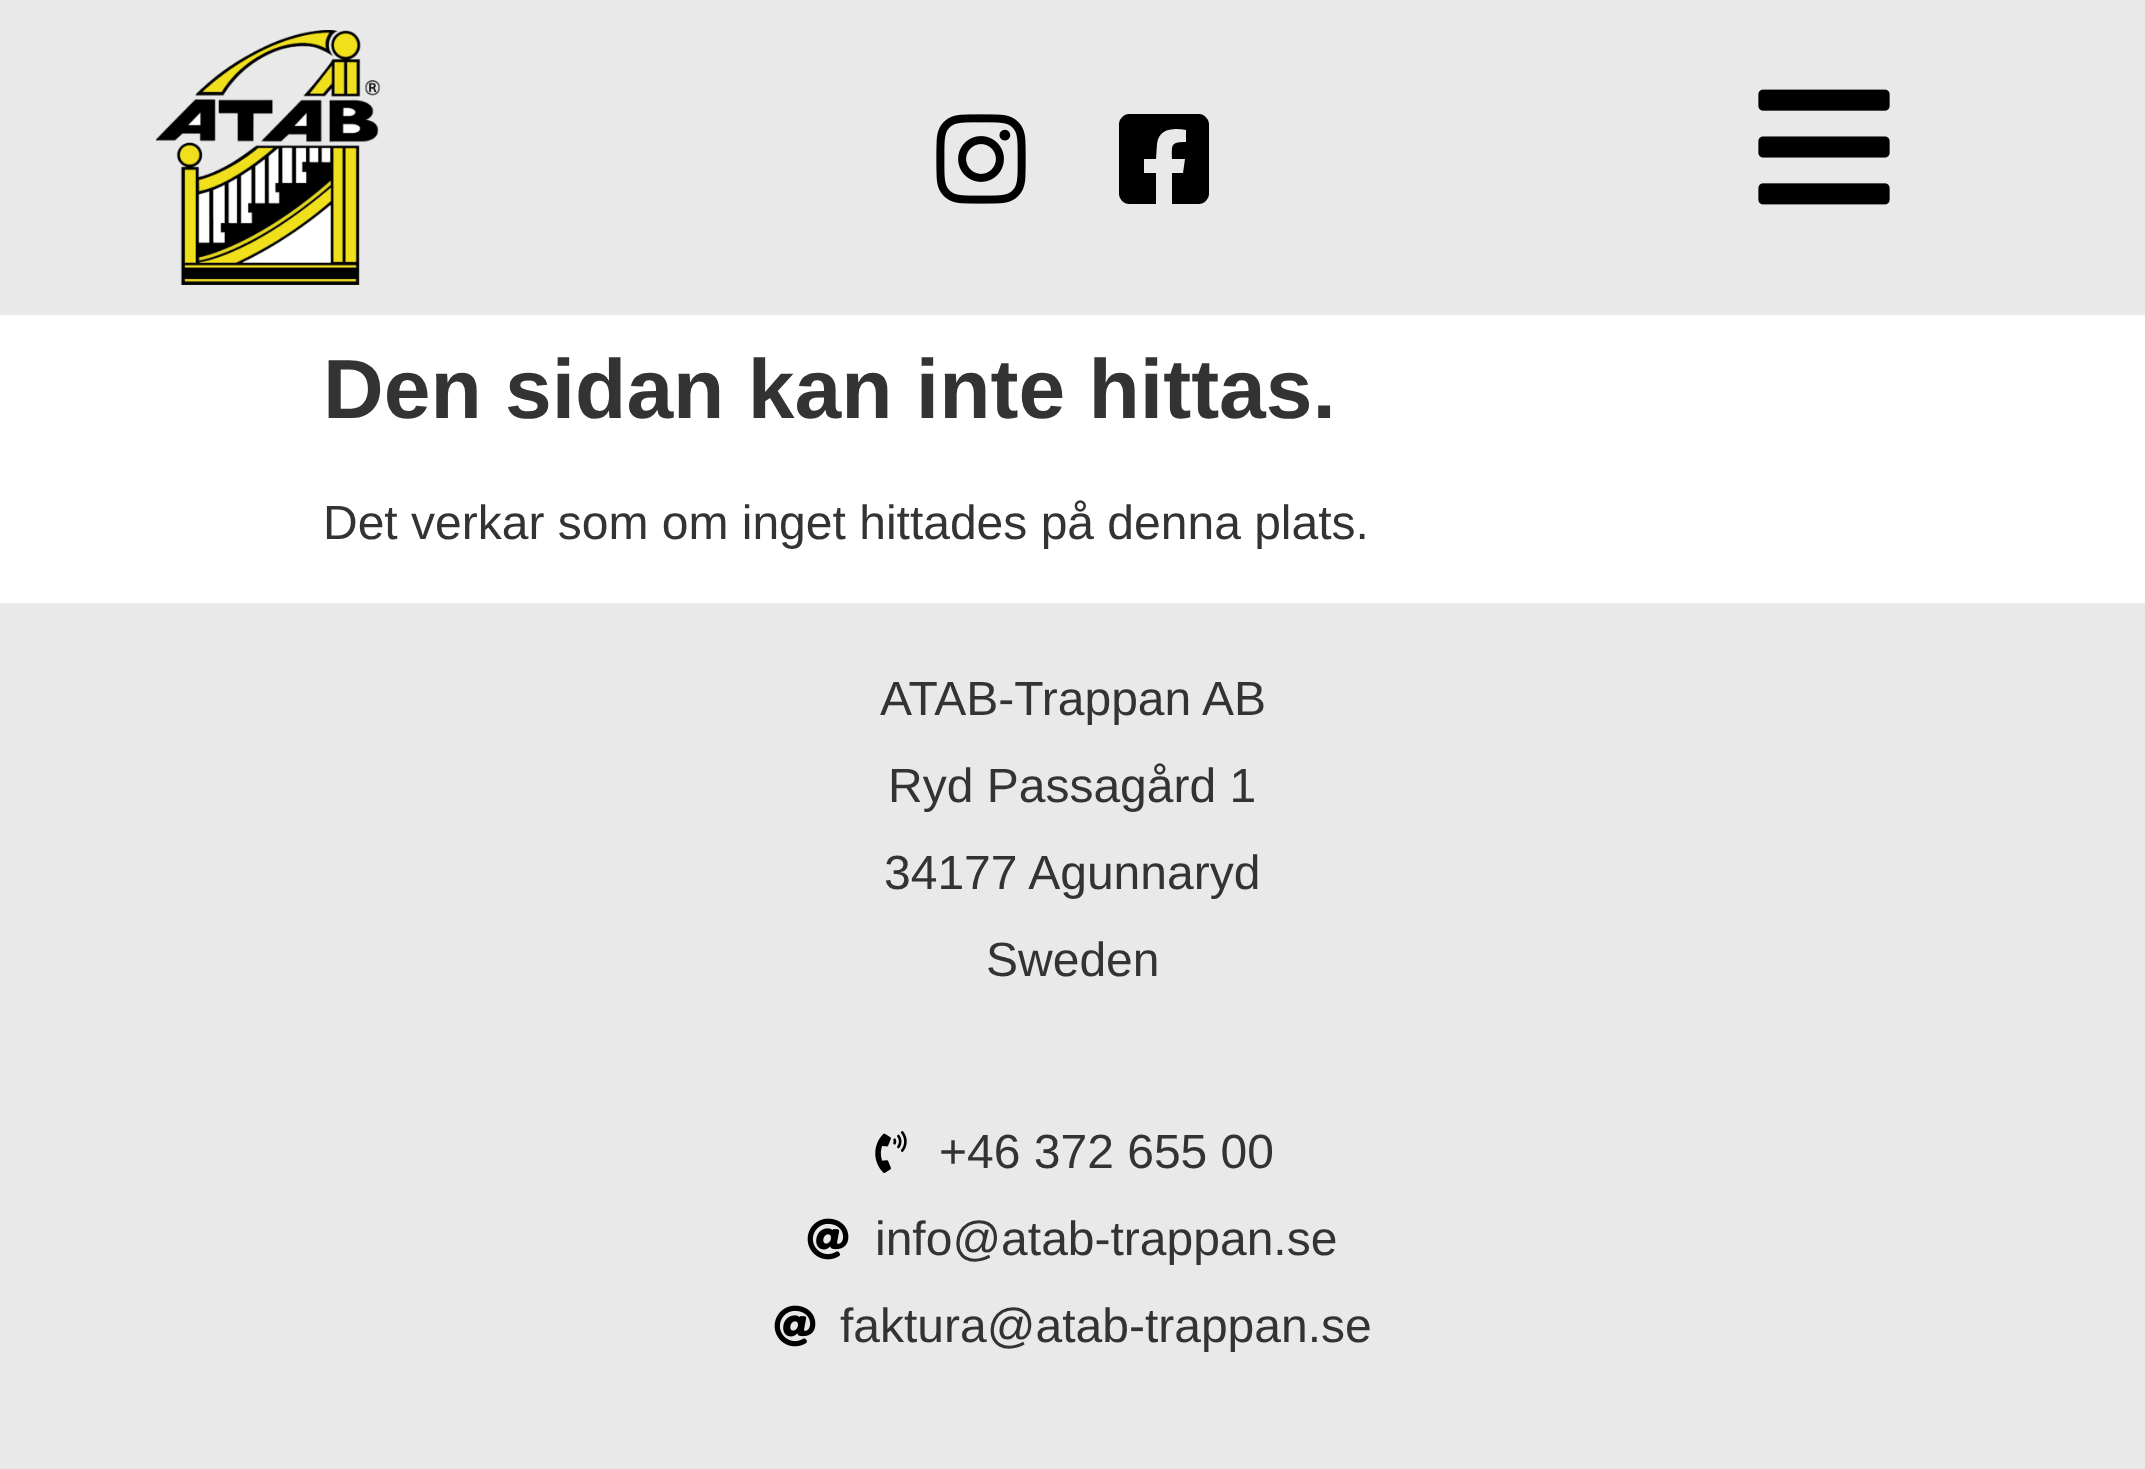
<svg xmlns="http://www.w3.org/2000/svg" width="2145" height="1469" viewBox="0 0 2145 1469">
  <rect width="100%" height="100%" fill="rgb(255,255,255)"/>
  <rect x="0" y="0" width="2145" height="315" fill="rgb(233,233,233)"/>
  <image x="156" y="30" width="225" height="255" href="pic1.png"/>
  <image x="936" y="114" width="90" height="90" href="pic2.png"/>
  <path d="M1199 114H1129C1124 114 1119 119 1119 124V194C1119 199 1124 204 1129 204H1156V173H1144V159H1156L1157 144C1159 128 1174 128 1186 130V142C1170 142 1172 145 1172 159H1185L1183 173H1172V204H1199C1204 204 1209 199 1209 194V124C1209 119 1204 114 1199 114Z" fill="rgb(0,0,0)"/>
  <image x="1758" y="89" width="132" height="116" href="pic3.png"/>
  <text x="323" y="418" font-family="Liberation Sans" font-size="84" font-weight="bold" fill="rgb(51,51,51)">Den sidan kan inte hittas.</text>
  <text x="323" y="539" font-family="Liberation Sans" font-size="48" fill="rgb(51,51,51)">Det verkar som om inget hittades på denna plats.</text>
  <rect x="0" y="603" width="2145" height="866" fill="rgb(233,233,233)"/>
  <g font-family="Liberation Sans" font-size="48" fill="rgb(51,51,51)">
    <text x="880" y="715">ATAB-Trappan AB</text>
    <text x="888" y="802">Ryd Passagård 1</text>
    <text x="884" y="889">34177 Agunnaryd</text>
    <text x="986" y="976">Sweden</text>
  </g>
  <image x="875" y="1131" width="32" height="42" href="pic4.png"/>
  <text x="939" y="1168" font-family="Liberation Sans" font-size="48" fill="rgb(51,51,51)">+46 372 655 00</text>
  <image x="807" y="1218" width="42" height="42" href="pic5.png"/>
  <text x="875" y="1255" font-family="Liberation Sans" font-size="48" fill="rgb(51,51,51)">info@atab-trappan.se</text>
  <image x="774" y="1305" width="42" height="42" href="pic5.png"/>
  <text x="840" y="1342" font-family="Liberation Sans" font-size="48" fill="rgb(51,51,51)">faktura@atab-trappan.se</text>
</svg>
